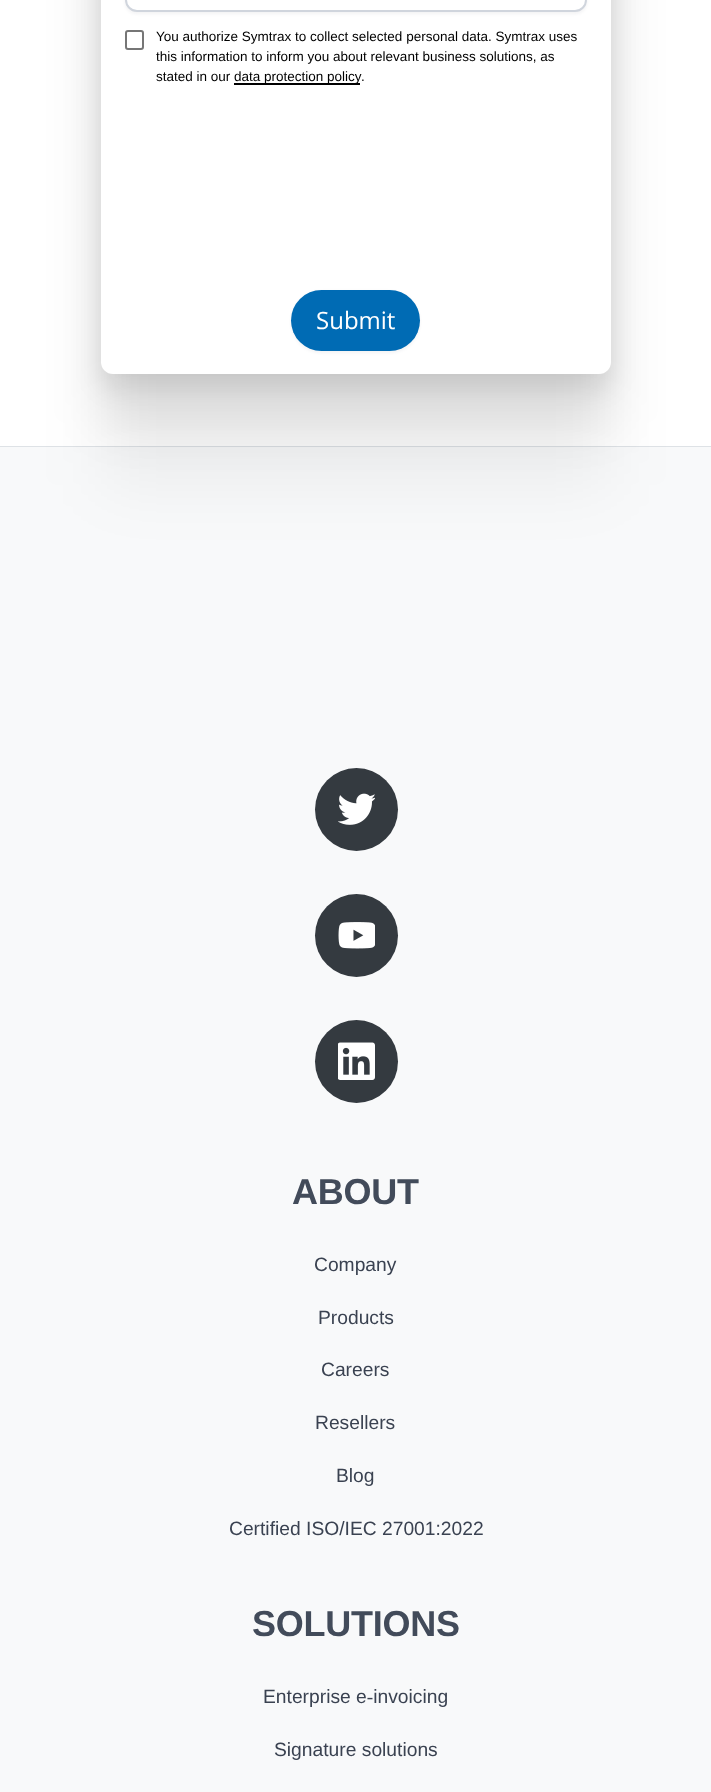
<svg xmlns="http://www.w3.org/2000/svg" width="711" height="1792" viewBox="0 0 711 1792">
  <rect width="100%" height="100%" fill="rgb(222,226,230)"/>
  <rect x="0" y="0" width="711" height="446" fill="rgb(255,255,255)"/>
  <rect x="101" y="-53" width="510" height="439" rx="12" fill="rgba(0,0,0,0.1)" filter="blur(13.5px)"/>
  <rect x="0" y="447" width="711" height="1345" fill="rgb(248,249,250)"/>
  <rect x="101" y="-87" width="510" height="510" rx="12" fill="rgba(0,0,0,0.09)" filter="blur(25px)"/>
  <rect x="101" y="-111" width="510" height="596" rx="12" fill="rgba(0,0,0,0.05)" filter="blur(33px)"/>
  <rect x="101" y="-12" width="510" height="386" rx="12" fill="rgb(255,255,255)"/>
  <rect x="125" y="-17" width="462" height="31" rx="12" fill="rgba(16,24,40,0.05)" filter="blur(1.5px)"/>
  <rect x="126" y="-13" width="460" height="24" rx="11" fill="rgb(255,255,255)" stroke="rgb(208,213,221)" stroke-width="2"/>
  <rect x="126" y="31" width="17" height="18" rx="2" fill="none" stroke="rgb(118,118,118)" stroke-width="2"/>
  <g font-family="Liberation Sans" font-size="13.5" fill="rgb(0,0,0)">
    <text>
      <tspan x="156" y="41">You authorize Symtrax to collect selected personal data. Symtrax uses</tspan>
      <tspan x="156" y="61">this information to inform you about relevant business solutions, as</tspan>
      <tspan x="156" y="81">stated in our</tspan>
    </text>
  </g>
  <rect x="234" y="83" width="126" height="2" fill="rgb(0,0,0)"/>
  <g font-family="Liberation Sans" font-size="13.5" fill="rgb(0,0,0)">
    <text x="234" y="81">data protection policy</text>
    <text x="361" y="81">.</text>
  </g>
  <rect x="291" y="291" width="129" height="62" rx="31" fill="rgba(16,24,40,0.05)" filter="blur(1.5px)"/>
  <rect x="291" y="290" width="129" height="61" rx="30.5" fill="rgb(0,107,180)"/>
  <text x="316" y="329" font-family="Open Sans" font-size="24" fill="rgb(255,255,255)">Submit</text>
  <circle cx="356.5" cy="809.5" r="41.5" fill="rgb(52,58,64)"/>
  <image x="338" y="793" width="37" height="32" href="pic1.png"/>
  <circle cx="356.5" cy="935.5" r="41.5" fill="rgb(52,58,64)"/>
  <image x="338" y="922" width="37" height="27" href="pic2.png"/>
  <circle cx="356.5" cy="1061.5" r="41.5" fill="rgb(52,58,64)"/>
  <image x="338" y="1042" width="37" height="38" href="pic3.png"/>
  <text x="292" y="1204" font-family="Liberation Sans" font-size="36" font-weight="bold" letter-spacing="-0.25" fill="rgb(66,75,90)">ABOUT</text>
  <g font-family="Liberation Sans" font-size="19.25" fill="rgb(58,66,81)">
    <text x="314" y="1271">Company</text>
    <text x="318" y="1324">Products</text>
    <text x="321" y="1376">Careers</text>
    <text x="315" y="1429">Resellers</text>
    <text x="336" y="1482">Blog</text>
    <text x="229" y="1535">Certified ISO/IEC 27001:2022</text>
  </g>
  <text x="252" y="1636" font-family="Liberation Sans" font-size="36" font-weight="bold" letter-spacing="-0.25" fill="rgb(66,75,90)">SOLUTIONS</text>
  <g font-family="Liberation Sans" font-size="19.25" fill="rgb(58,66,81)">
    <text x="263" y="1703">Enterprise e‑invoicing</text>
    <text x="274" y="1756">Signature solutions</text>
  </g>
</svg>
